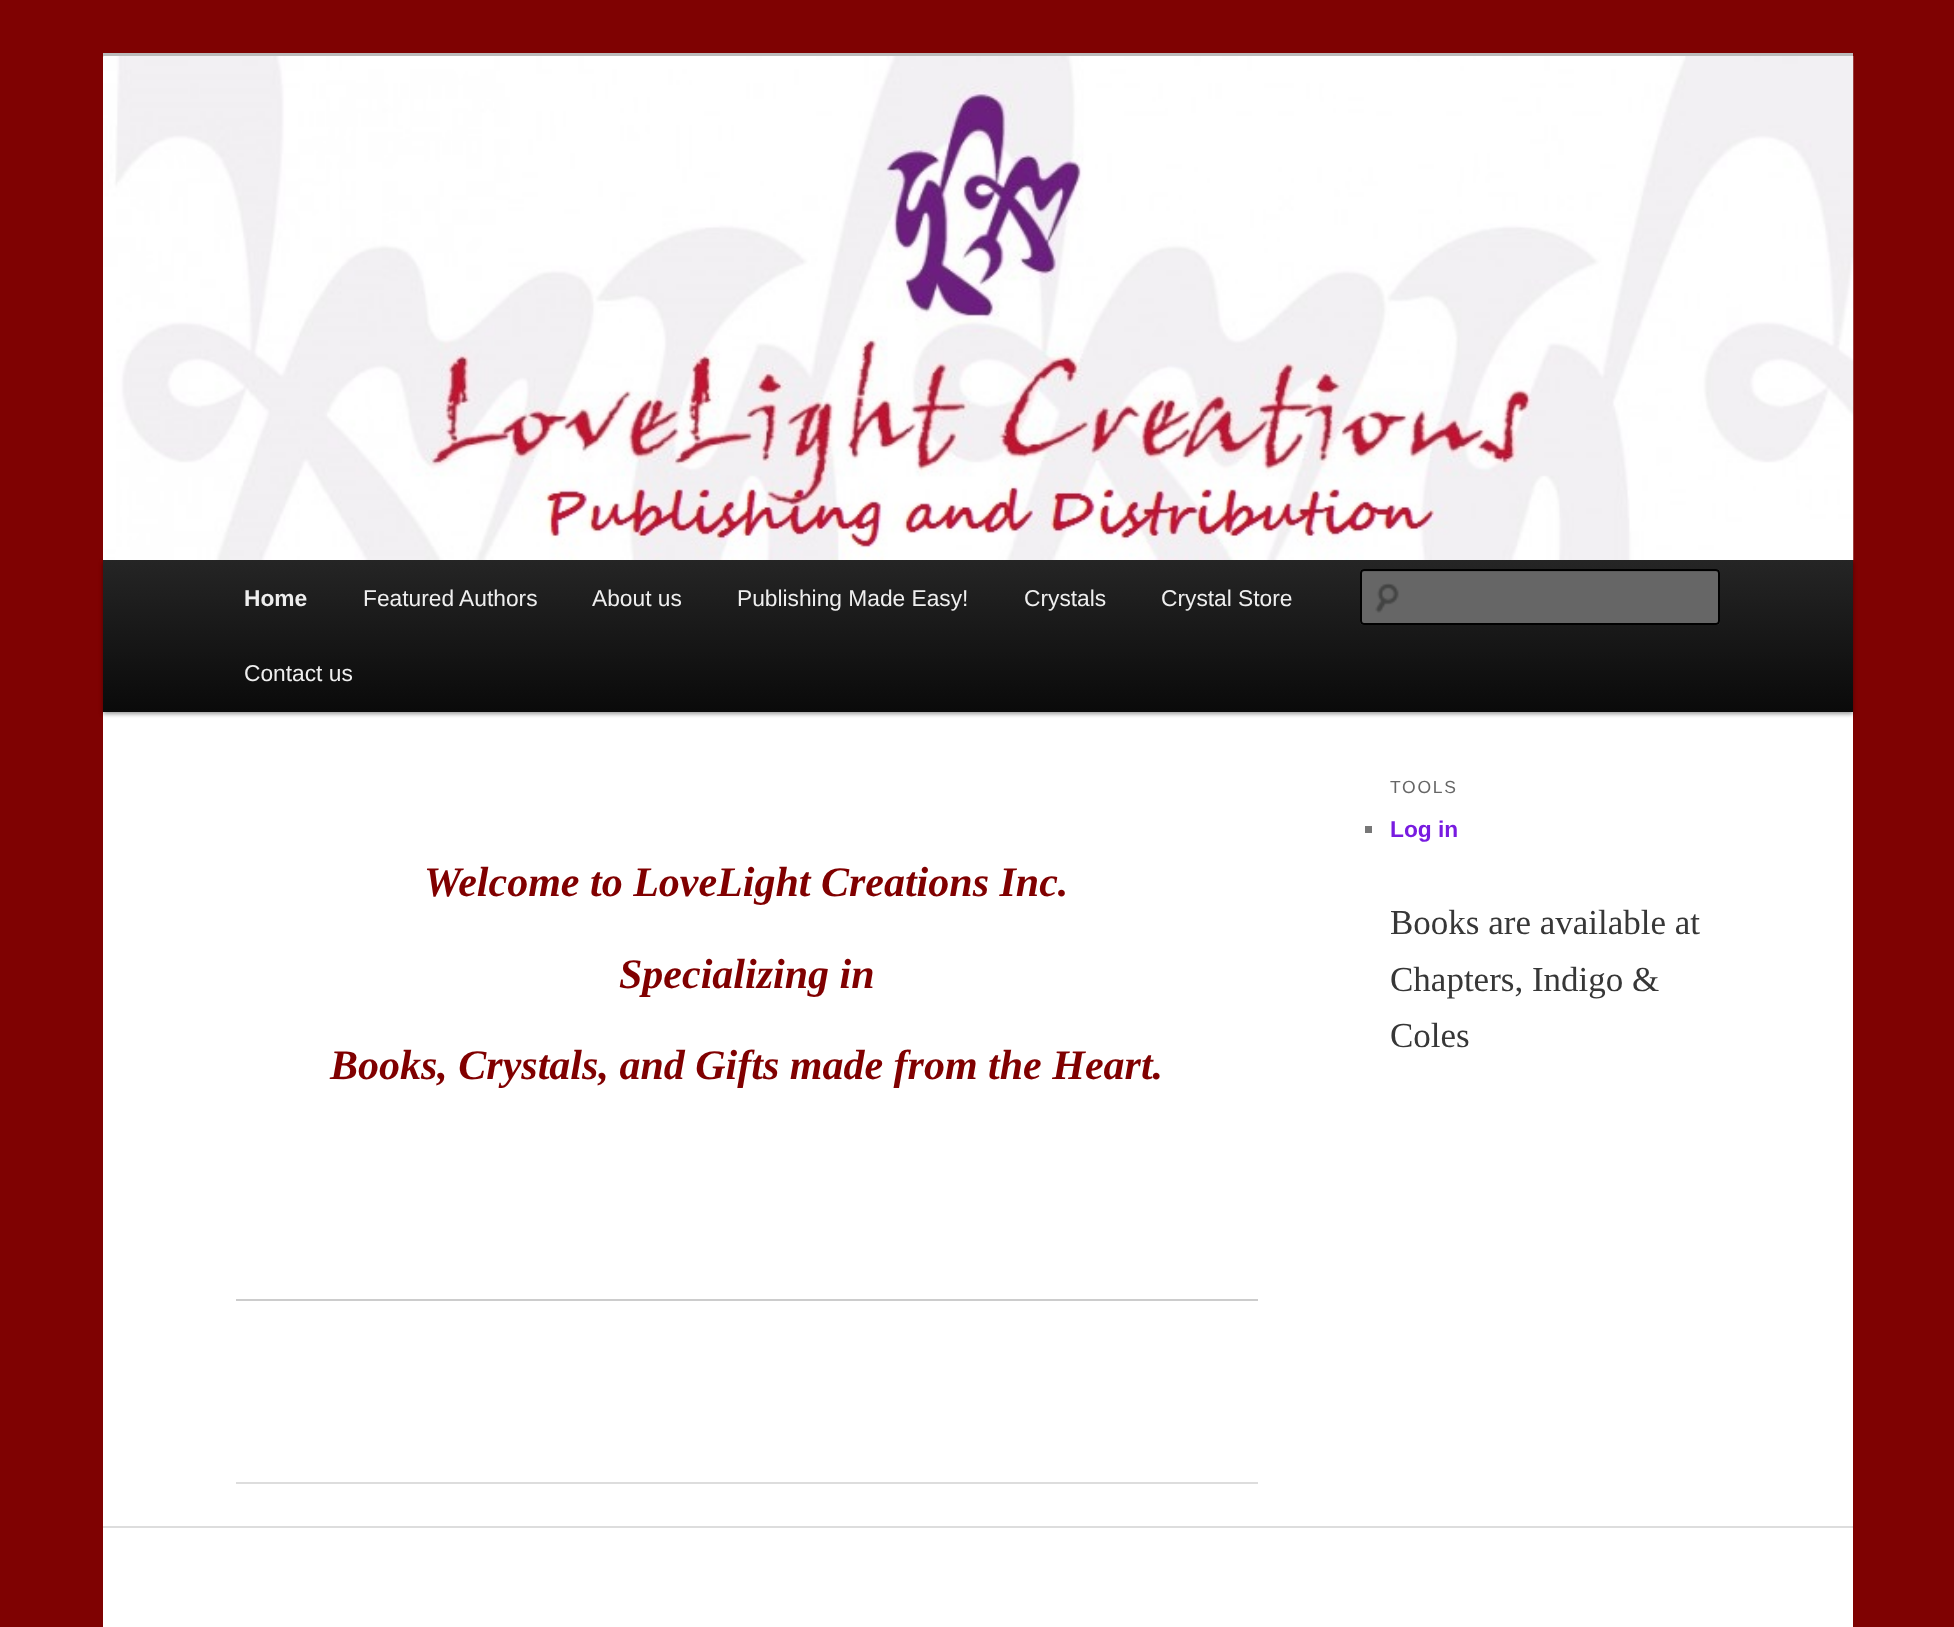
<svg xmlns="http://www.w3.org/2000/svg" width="1954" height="1627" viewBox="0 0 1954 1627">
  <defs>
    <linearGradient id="g1" gradientUnits="userSpaceOnUse" x1="978" y1="560" x2="978" y2="712"><stop offset="0" stop-color="rgb(37,37,37)"/><stop offset="1" stop-color="rgb(10,10,10)"/></linearGradient>
  </defs>
  <rect width="100%" height="100%" fill="rgb(127,2,2)"/>
  <rect x="103" y="57" width="1750" height="1570" fill="rgb(255,255,255)"/>
  <rect x="103" y="53" width="1750" height="4" fill="rgb(187,187,187)"/>
  <rect x="103" y="562" width="1750" height="152" fill="rgba(0,0,0,0.4)" filter="blur(2px)"/>
  <image x="103" y="56" width="1751" height="504" href="pic1.png"/>
  <rect x="103" y="560" width="1750" height="152" fill="url(#g1)"/>
  <text x="244" y="606" font-family="Liberation Sans" font-size="22.75" font-weight="bold" fill="rgb(238,238,238)">Home</text>
  <g font-family="Liberation Sans" font-size="22.75" fill="rgb(238,238,238)">
    <text x="363" y="606">Featured Authors</text>
    <text x="592" y="606">About us</text>
    <text x="737" y="606">Publishing Made Easy!</text>
    <text x="1024" y="606">Crystals</text>
    <text x="1161" y="606">Crystal Store</text>
    <text x="244" y="681">Contact us</text>
  </g>
  <rect x="1360" y="569" width="360" height="56" rx="4" fill="rgb(102,102,102)"/>
  <image x="1375" y="583" width="24" height="30" href="pic2.png"/>
  <path d="M1363 572H1717C1718 572 1718 573 1718 574V623L1719 621V573C1719 572 1718 571 1717 571H1364C1362 571 1362 573 1362 574C1362 573 1362 572 1363 572Z" fill="rgb(92,92,92)"/>
  <rect x="1361" y="570" width="358" height="54" rx="3" fill="none" stroke="rgb(0,0,0)" stroke-width="2"/>
  <rect x="236" y="1482" width="1022" height="2" fill="rgb(221,221,221)"/>
  <g font-family="Liberation Serif" font-size="42" font-weight="bold" font-style="italic" fill="rgb(128,0,0)">
    <text x="424" y="896">Welcome to LoveLight Creations Inc.</text>
    <text x="619" y="988">Specializing in</text>
    <text x="330" y="1079">Books, Crystals, and Gifts made from the Heart.</text>
  </g>
  <rect x="236" y="1299" width="1022" height="2" fill="rgb(204,204,204)"/>
  <text x="1390" y="793" font-family="Liberation Sans" font-size="17.5" letter-spacing="1.75" fill="rgb(102,102,102)">TOOLS</text>
  <rect x="1365" y="826" width="7" height="7" fill="rgb(119,119,119)"/>
  <text x="1390" y="837" font-family="Liberation Sans" font-size="22.75" font-weight="bold" fill="rgb(120,27,224)">Log in</text>
  <g font-family="Liberation Serif" font-size="35" fill="rgb(55,55,55)">
    <text>
      <tspan x="1390" y="934">Books are available at</tspan>
      <tspan x="1390" y="991">Chapters, Indigo &amp;</tspan>
      <tspan x="1390" y="1047">Coles</tspan>
    </text>
  </g>
  <rect x="103" y="1526" width="1750" height="2" fill="rgb(221,221,221)"/>
</svg>
